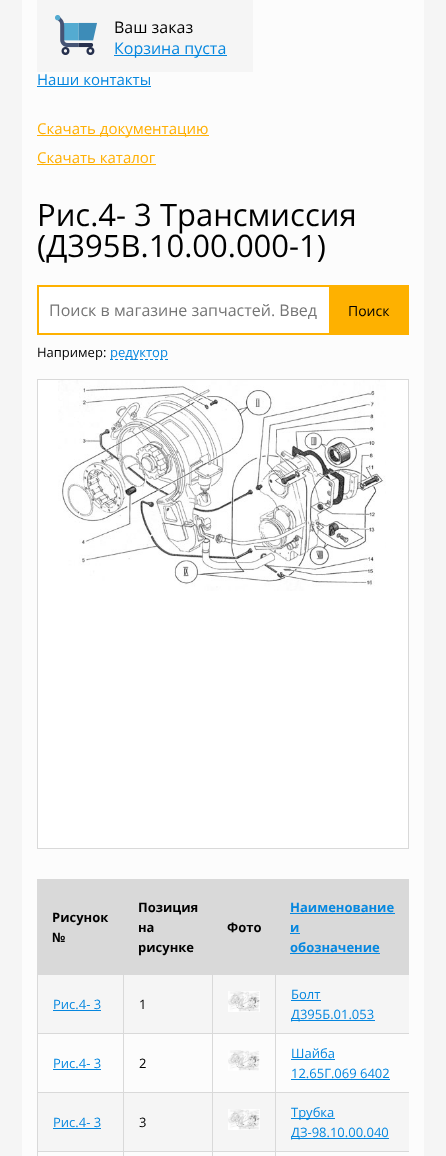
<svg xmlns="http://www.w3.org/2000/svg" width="446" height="1156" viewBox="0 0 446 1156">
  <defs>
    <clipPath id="clip1"><rect x="37" y="285" width="372" height="75"/></clipPath>
  </defs>
  <rect width="100%" height="100%" fill="rgb(245,245,245)"/>
  <rect x="22" y="0" width="402" height="1156" fill="rgb(252,252,252)"/>
  <rect x="37" y="0" width="216" height="72" fill="rgb(245,245,245)"/>
  <image x="55" y="15" width="42" height="40" href="pic1.png"/>
  <text x="114" y="33" font-family="Open Sans" font-size="16" fill="rgb(0,0,0)">Ваш заказ</text>
  <rect x="114" y="55" width="113" height="1" fill="rgb(5,135,223)"/>
  <text x="114" y="54" font-family="Open Sans" font-size="16" fill="rgb(5,135,223)">Корзина пуста</text>
  <text x="37" y="85" font-family="Open Sans" font-size="15" fill="rgb(5,135,223)">Наши контакты</text>
  <rect x="37" y="86" width="114" height="1" fill="rgb(5,135,223)"/>
  <rect x="37" y="135" width="172" height="1" fill="rgb(255,176,4)"/>
  <g font-family="Open Sans" font-size="15" fill="rgb(255,176,4)">
    <text>
      <tspan x="37" y="134">Скачать документацию</tspan>
      <tspan x="37" y="163">Скачать каталог</tspan>
    </text>
  </g>
  <rect x="37" y="164" width="119" height="1" fill="rgb(255,176,4)"/>
  <g font-family="Open Sans" font-size="31" fill="rgb(0,0,0)">
    <text>
      <tspan x="37" y="226">Рис.4- 3 Трансмиссия</tspan>
      <tspan x="37" y="257">(Д395В.10.00.000-1)</tspan>
    </text>
  </g>
  <rect x="39" y="287" width="290" height="46" fill="rgb(255,255,255)"/>
  <rect x="38" y="286" width="370" height="48" fill="none" stroke="rgb(254,177,0)" stroke-width="2"/>
  <text x="49" y="316" font-family="Open Sans" font-size="16" fill="rgb(117,117,117)">Поиск в магазине запчастей. Введ</text>
  <rect x="329" y="287" width="78" height="46" fill="rgb(254,177,0)"/>
  <text x="348" y="316" font-family="Open Sans" font-size="14" fill="rgb(0,0,0)">Поиск</text>
  <text x="37" y="357" font-family="Open Sans" font-size="13" fill="rgb(0,0,0)">Например:</text>
  <path d="M110 359.5H168" fill="none" stroke="rgb(5,135,223)" stroke-dasharray="3 2"/>
  <g clip-path="url(#clip1)">
    <text x="110" y="357" font-family="Open Sans" font-size="13" fill="rgb(5,135,223)">редуктор</text>
  </g>
  <rect x="38" y="380" width="370" height="468" fill="rgb(255,255,255)"/>
  <image x="58" y="380" width="328" height="211" href="pic2.png"/>
  <rect x="37.5" y="379.5" width="371" height="469" fill="none" stroke="rgb(217,217,217)"/>
  <rect x="38" y="880" width="371" height="95" fill="rgb(217,217,217)"/>
  <rect x="37" y="879" width="372" height="1" fill="rgb(217,217,217)"/>
  <rect x="38" y="1093" width="371" height="58" fill="rgb(245,245,245)"/>
  <rect x="275" y="1151" width="1" height="5" fill="rgb(217,217,217)"/>
  <rect x="275" y="1151" width="134" height="1" fill="rgb(217,217,217)"/>
  <rect x="275" y="1092" width="1" height="60" fill="rgb(217,217,217)"/>
  <rect x="275" y="1092" width="134" height="1" fill="rgb(217,217,217)"/>
  <rect x="275" y="1033" width="1" height="60" fill="rgb(217,217,217)"/>
  <rect x="275" y="1033" width="134" height="1" fill="rgb(217,217,217)"/>
  <rect x="38" y="975" width="371" height="58" fill="rgb(245,245,245)"/>
  <rect x="275" y="974" width="1" height="60" fill="rgb(217,217,217)"/>
  <rect x="212" y="1151" width="1" height="5" fill="rgb(217,217,217)"/>
  <rect x="212" y="1151" width="64" height="1" fill="rgb(217,217,217)"/>
  <rect x="212" y="1092" width="1" height="60" fill="rgb(217,217,217)"/>
  <rect x="212" y="1092" width="64" height="1" fill="rgb(217,217,217)"/>
  <rect x="212" y="1033" width="1" height="60" fill="rgb(217,217,217)"/>
  <rect x="212" y="1033" width="64" height="1" fill="rgb(217,217,217)"/>
  <rect x="212" y="974" width="1" height="60" fill="rgb(217,217,217)"/>
  <rect x="123" y="1151" width="1" height="5" fill="rgb(217,217,217)"/>
  <rect x="123" y="1151" width="90" height="1" fill="rgb(217,217,217)"/>
  <rect x="123" y="1092" width="1" height="60" fill="rgb(217,217,217)"/>
  <rect x="123" y="1092" width="90" height="1" fill="rgb(217,217,217)"/>
  <rect x="123" y="1033" width="1" height="60" fill="rgb(217,217,217)"/>
  <rect x="123" y="1033" width="90" height="1" fill="rgb(217,217,217)"/>
  <rect x="123" y="974" width="1" height="60" fill="rgb(217,217,217)"/>
  <rect x="37" y="1151" width="1" height="5" fill="rgb(217,217,217)"/>
  <rect x="37" y="1151" width="87" height="1" fill="rgb(217,217,217)"/>
  <rect x="37" y="1092" width="1" height="60" fill="rgb(217,217,217)"/>
  <rect x="37" y="1092" width="87" height="1" fill="rgb(217,217,217)"/>
  <rect x="37" y="1033" width="1" height="60" fill="rgb(217,217,217)"/>
  <rect x="37" y="1033" width="87" height="1" fill="rgb(217,217,217)"/>
  <rect x="37" y="974" width="1" height="60" fill="rgb(217,217,217)"/>
  <rect x="37" y="879" width="1" height="96" fill="rgb(217,217,217)"/>
  <g font-family="Open Sans" font-size="13" font-weight="bold" fill="rgb(0,0,0)">
    <text>
      <tspan x="52" y="922">Рисунок</tspan>
      <tspan x="52" y="942">№</tspan>
    </text>
    <text>
      <tspan x="138" y="912">Позиция</tspan>
      <tspan x="138" y="932">на</tspan>
      <tspan x="138" y="952">рисунке</tspan>
    </text>
    <text x="227" y="932">Фото</text>
  </g>
  <text x="290" y="912" font-family="Open Sans" font-size="13" font-weight="bold" fill="rgb(5,135,223)">Наименование</text>
  <rect x="290" y="913" width="105" height="1" fill="rgb(5,135,223)"/>
  <text x="290" y="932" font-family="Open Sans" font-size="13" font-weight="bold" fill="rgb(5,135,223)">и</text>
  <rect x="290" y="933" width="10" height="1" fill="rgb(5,135,223)"/>
  <text x="290" y="952" font-family="Open Sans" font-size="13" font-weight="bold" fill="rgb(5,135,223)">обозначение</text>
  <rect x="290" y="953" width="90" height="1" fill="rgb(5,135,223)"/>
  <text x="53" y="1009" font-family="Open Sans" font-size="13" fill="rgb(5,135,223)">Рис.4- 3</text>
  <rect x="53" y="1010" width="48" height="1" fill="rgb(5,135,223)"/>
  <text x="139" y="1009" font-family="Open Sans" font-size="13" fill="rgb(0,0,0)">1</text>
  <image x="228" y="991" width="32" height="21" href="pic3.png"/>
  <text x="291" y="999" font-family="Open Sans" font-size="13" fill="rgb(5,135,223)">Болт</text>
  <rect x="291" y="1000" width="30" height="1" fill="rgb(5,135,223)"/>
  <rect x="291" y="1020" width="84" height="1" fill="rgb(5,135,223)"/>
  <g font-family="Open Sans" font-size="13" fill="rgb(5,135,223)">
    <text x="291" y="1019">Д395Б.01.053</text>
    <text x="53" y="1068">Рис.4- 3</text>
  </g>
  <rect x="53" y="1069" width="48" height="1" fill="rgb(5,135,223)"/>
  <text x="139" y="1068" font-family="Open Sans" font-size="13" fill="rgb(0,0,0)">2</text>
  <image x="228" y="1050" width="32" height="21" href="pic3.png"/>
  <text x="291" y="1058" font-family="Open Sans" font-size="13" fill="rgb(5,135,223)">Шайба</text>
  <rect x="291" y="1059" width="44" height="1" fill="rgb(5,135,223)"/>
  <text x="291" y="1078" font-family="Open Sans" font-size="13" fill="rgb(5,135,223)">12.65Г.069 6402</text>
  <rect x="291" y="1079" width="99" height="1" fill="rgb(5,135,223)"/>
  <text x="53" y="1127" font-family="Open Sans" font-size="13" fill="rgb(5,135,223)">Рис.4- 3</text>
  <rect x="53" y="1128" width="48" height="1" fill="rgb(5,135,223)"/>
  <text x="139" y="1127" font-family="Open Sans" font-size="13" fill="rgb(0,0,0)">3</text>
  <image x="228" y="1109" width="32" height="21" href="pic3.png"/>
  <rect x="291" y="1118" width="44" height="1" fill="rgb(5,135,223)"/>
  <text x="291" y="1117" font-family="Open Sans" font-size="13" fill="rgb(5,135,223)">Трубка</text>
  <rect x="291" y="1138" width="98" height="1" fill="rgb(5,135,223)"/>
  <text x="291" y="1137" font-family="Open Sans" font-size="13" fill="rgb(5,135,223)">ДЗ-98.10.00.040</text>
</svg>
